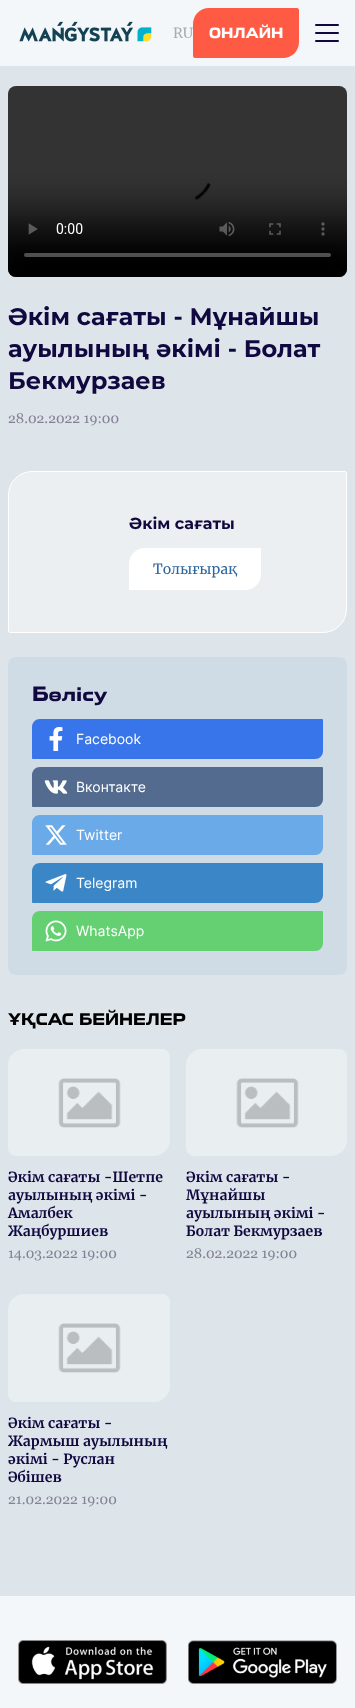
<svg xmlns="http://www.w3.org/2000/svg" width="355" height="1708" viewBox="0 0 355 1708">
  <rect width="100%" height="100%" fill="rgb(221,228,234)"/>
  <rect x="0" y="0" width="355" height="66" fill="rgb(243,247,250)"/>
  <image x="19" y="21" width="133" height="21" href="pic1.png"/>
  <text x="173" y="38" font-family="Merriweather" font-size="14" fill="rgb(170,173,175)">RU</text>
  <path d="M209 8H297C298 8 299 9 299 10V42C299 51 292 58 283 58H195C194 58 193 57 193 56V24C193 15 200 8 209 8Z" fill="rgb(255,90,67)"/>
  <text x="209" y="38" font-family="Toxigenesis" font-size="14" font-weight="bold" fill="rgb(255,255,255)">ОНЛАЙН</text>
  <path d="M316 25H338M316 33H338M316 41H338" fill="none" stroke="rgb(16,8,63)" stroke-width="2" stroke-linecap="round"/>
  <image x="8" y="86" width="339" height="191" href="pic2.png"/>
  <g font-family="Montserrat" font-size="24" font-weight="bold" fill="rgb(16,8,63)">
    <text>
      <tspan x="8" y="325">Әкім сағаты - Мұнайшы</tspan>
      <tspan x="8" y="357">ауылының әкімі - Болат</tspan>
      <tspan x="8" y="389">Бекмурзаев</tspan>
    </text>
  </g>
  <text x="8" y="423" font-family="Georgia" font-size="14" fill="rgb(133,130,149)">28.02.2022 19:00</text>
  <path d="M32 471.5H345C346 471.5 346.5 472 346.5 473V609C346.5 622 336 632.5 323 632.5H10C9 632.5 8.5 632 8.5 631V495C8.5 482 19 471.5 32 471.5Z" fill="rgb(235,239,242)" stroke="rgb(255,255,255)"/>
  <text x="129" y="529" font-family="Montserrat" font-size="16" font-weight="bold" fill="rgb(16,8,63)">Әкім сағаты</text>
  <path d="M145 548H261V574C261 583 254 590 245 590H129V564C129 555 136 548 145 548Z" fill="rgb(255,255,255)"/>
  <text x="153" y="574" font-family="Merriweather" font-size="14" fill="rgb(43,102,159)">Толығырақ</text>
  <rect x="8" y="657" width="339" height="318" rx="8" fill="rgb(208,220,229)"/>
  <text x="32" y="701" font-family="Toxigenesis" font-size="20" font-weight="bold" fill="rgb(16,8,63)">Бөлісу</text>
  <path d="M40 719H322C322.5 719 323 719.5 323 720V751C323 755.5 319.5 759 315 759H33C32.5 759 32 758.5 32 758V727C32 722.5 35.5 719 40 719Z" fill="rgb(57,117,234)"/>
  <image x="49" y="727" width="14" height="24" href="pic3.png"/>
  <text x="76" y="744" font-family="Inter" font-size="14" fill="rgb(255,255,255)">Facebook</text>
  <path d="M40 767H322C322.5 767 323 767.5 323 768V799C323 803.5 319.5 807 315 807H33C32.5 807 32 806.5 32 806V775C32 770.5 35.5 767 40 767Z" fill="rgb(83,107,142)"/>
  <image x="44" y="780" width="24" height="14" href="pic4.png"/>
  <text x="76" y="792" font-family="Inter" font-size="14" fill="rgb(255,255,255)">Вконтакте</text>
  <path d="M40 815H322C322.5 815 323 815.5 323 816V847C323 851.5 319.5 855 315 855H33C32.5 855 32 854.5 32 854V823C32 818.5 35.5 815 40 815Z" fill="rgb(107,170,232)"/>
  <image x="45" y="825" width="22" height="20" href="pic5.png"/>
  <text x="76" y="840" font-family="Inter" font-size="14" fill="rgb(255,255,255)">Twitter</text>
  <path d="M40 863H322C322.5 863 323 863.5 323 864V895C323 899.5 319.5 903 315 903H33C32.5 903 32 902.5 32 902V871C32 866.5 35.5 863 40 863Z" fill="rgb(59,134,198)"/>
  <image x="45" y="874" width="22" height="18" href="pic6.png"/>
  <text x="76" y="888" font-family="Inter" font-size="14" fill="rgb(255,255,255)">Telegram</text>
  <path d="M40 911H322C322.5 911 323 911.5 323 912V943C323 947.5 319.5 951 315 951H33C32.5 951 32 950.5 32 950V919C32 914.5 35.5 911 40 911Z" fill="rgb(101,208,114)"/>
  <image x="45" y="920" width="22" height="22" href="pic7.png"/>
  <text x="76" y="936" font-family="Inter" font-size="14" fill="rgb(255,255,255)">WhatsApp</text>
  <text x="8" y="1025" font-family="Toxigenesis" font-size="16" font-weight="bold" fill="rgb(0,0,0)">ҰҚСАС БЕЙНЕЛЕР</text>
  <image x="8" y="1049" width="162" height="107" href="pic8.png"/>
  <g font-family="Merriweather" font-size="14" font-weight="bold" fill="rgb(16,8,63)">
    <text>
      <tspan x="8" y="1182">Әкім сағаты -Шетпе</tspan>
      <tspan x="8" y="1200">ауылының әкімі -</tspan>
      <tspan x="8" y="1218">Амалбек</tspan>
      <tspan x="8" y="1236">Жаңбуршиев</tspan>
    </text>
  </g>
  <text x="8" y="1258" font-family="Georgia" font-size="14" fill="rgb(133,130,149)">14.03.2022 19:00</text>
  <image x="186" y="1049" width="161" height="107" href="pic9.png"/>
  <g font-family="Merriweather" font-size="14" font-weight="bold" fill="rgb(16,8,63)">
    <text>
      <tspan x="186" y="1182">Әкім сағаты -</tspan>
      <tspan x="186" y="1200">Мұнайшы</tspan>
      <tspan x="186" y="1218">ауылының әкімі -</tspan>
      <tspan x="186" y="1236">Болат Бекмурзаев</tspan>
    </text>
  </g>
  <text x="186" y="1258" font-family="Georgia" font-size="14" fill="rgb(133,130,149)">28.02.2022 19:00</text>
  <image x="8" y="1294" width="162" height="108" href="pic10.png"/>
  <g font-family="Merriweather" font-size="14" font-weight="bold" fill="rgb(16,8,63)">
    <text>
      <tspan x="8" y="1428">Әкім сағаты -</tspan>
      <tspan x="8" y="1446">Жармыш ауылының</tspan>
      <tspan x="8" y="1464">әкімі - Руслан</tspan>
      <tspan x="8" y="1482">Әбішев</tspan>
    </text>
  </g>
  <text x="8" y="1504" font-family="Georgia" font-size="14" fill="rgb(133,130,149)">21.02.2022 19:00</text>
  <rect x="0" y="1596" width="355" height="112" fill="rgb(243,247,250)"/>
  <image x="18" y="1640" width="149" height="44" href="pic11.png"/>
  <image x="188" y="1640" width="149" height="44" href="pic12.png"/>
</svg>
